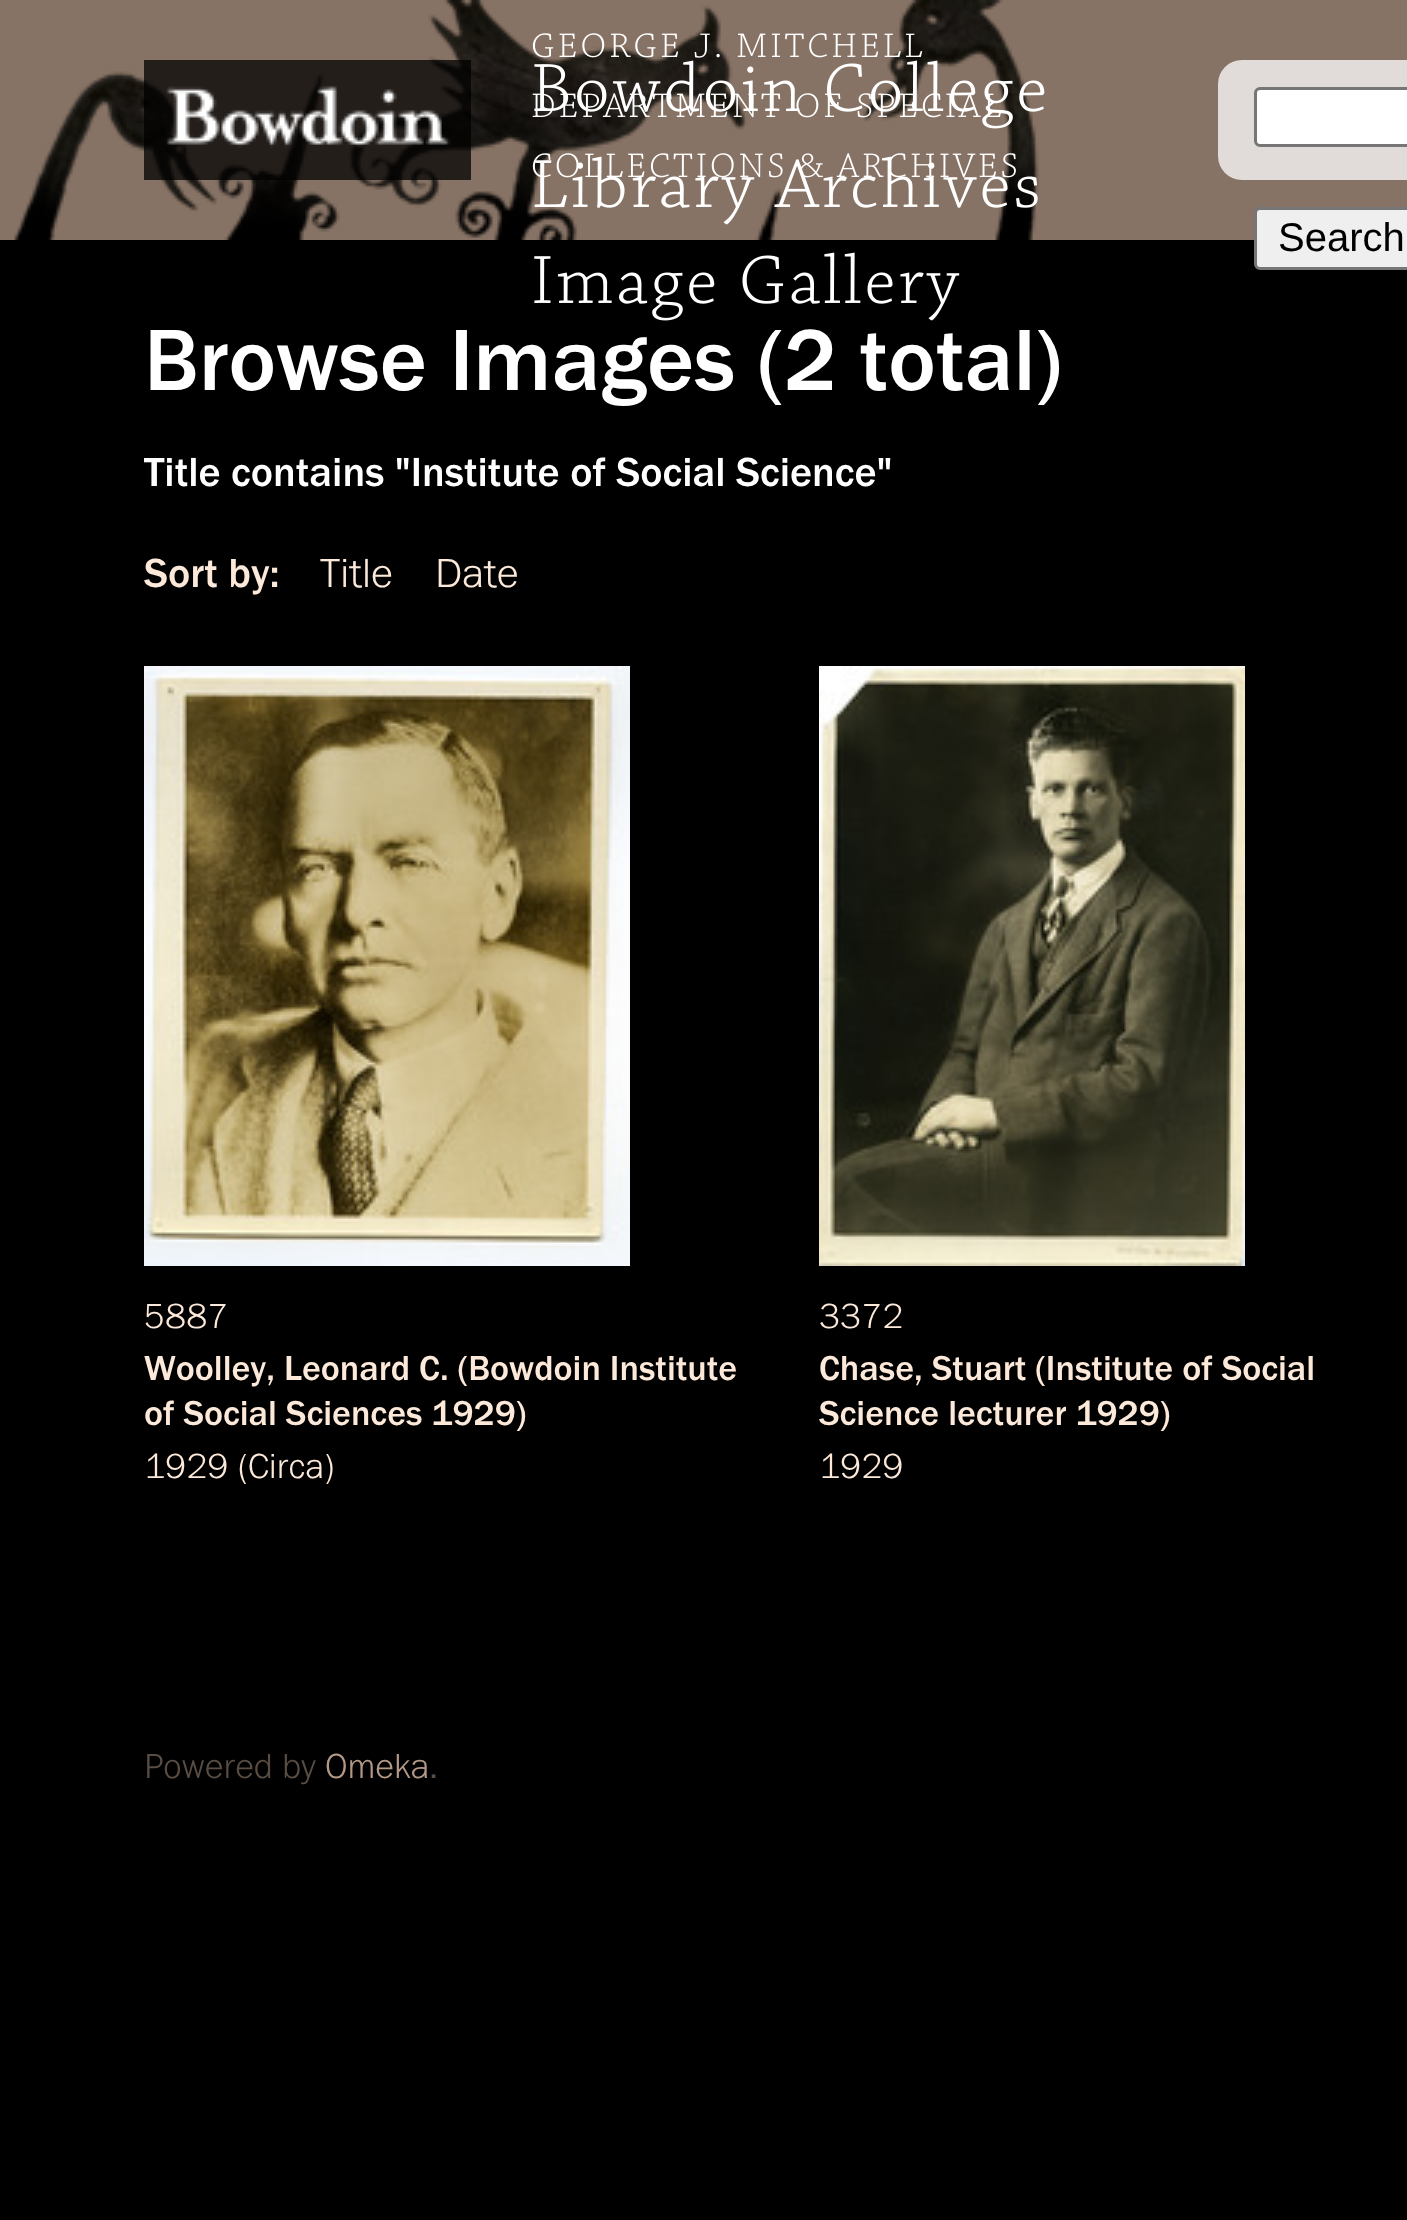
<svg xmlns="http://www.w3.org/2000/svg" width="1407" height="2220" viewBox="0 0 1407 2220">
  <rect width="100%" height="100%" fill="rgb(0,0,0)"/>
  <rect x="0" y="0" width="1407" height="240" fill="rgb(135,115,101)"/>
  <image x="14" y="0" width="1025" height="240" href="pic1.png"/>
  <image x="144" y="60" width="327" height="120" href="pic2.png"/>
  <image x="532" y="33" width="391" height="25" href="pic3.png"/>
  <image x="534" y="60" width="511" height="69" href="pic6.png"/>
  <image x="532" y="93" width="469" height="25" href="pic4.png"/>
  <image x="534" y="156" width="504" height="69" href="pic7.png"/>
  <image x="532" y="153" width="484" height="25" href="pic5.png"/>
  <image x="534" y="252" width="426" height="69" href="pic8.png"/>
  <rect x="1218" y="60" width="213" height="120" rx="24" fill="rgb(225,220,217)"/>
  <rect x="1255.5" y="88.5" width="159" height="57" rx="4.5" fill="rgb(255,255,255)" stroke="rgb(118,118,118)" stroke-width="3"/>
  <rect x="1255.5" y="208.5" width="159" height="60" rx="4.5" fill="rgb(239,239,239)" stroke="rgb(118,118,118)" stroke-width="3"/>
  <text x="1278" y="251" font-family="Liberation Sans" font-size="40" fill="rgb(0,0,0)">Search</text>
  <text x="144" y="390" font-family="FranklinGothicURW" font-size="90" fill="rgb(255,255,255)">Browse Images (2 total)</text>
  <text x="144" y="486" font-family="FranklinGothicURW" font-size="42.1" fill="rgb(255,255,255)">Title contains "Institute of Social Science"</text>
  <text x="144" y="587" font-family="FranklinGothicURW" font-size="42.1" fill="rgb(252,233,217)">Sort by:</text>
  <g font-family="'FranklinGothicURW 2'" font-size="42.1" fill="rgb(252,233,217)">
    <text x="320" y="587">Title</text>
    <text x="435" y="587">Date</text>
  </g>
  <image x="144" y="666" width="486" height="600" href="pic9.png"/>
  <text x="144" y="1328" font-family="'FranklinGothicURW 2'" font-size="36" fill="rgb(252,233,217)">5887</text>
  <g font-family="FranklinGothicURW" font-size="36" fill="rgb(252,233,217)">
    <text>
      <tspan x="144" y="1380">Woolley, Leonard C. (Bowdoin Institute</tspan>
      <tspan x="144" y="1425">of Social Sciences 1929)</tspan>
    </text>
  </g>
  <text x="144" y="1478" font-family="'FranklinGothicURW 2'" font-size="36" fill="rgb(252,233,217)">1929 (Circa)</text>
  <image x="819" y="666" width="426" height="600" href="pic10.png"/>
  <text x="819" y="1328" font-family="'FranklinGothicURW 2'" font-size="36" fill="rgb(252,233,217)">3372</text>
  <g font-family="FranklinGothicURW" font-size="36" fill="rgb(252,233,217)">
    <text>
      <tspan x="819" y="1380">Chase, Stuart (Institute of Social</tspan>
      <tspan x="819" y="1425">Science lecturer 1929)</tspan>
    </text>
  </g>
  <text x="819" y="1478" font-family="'FranklinGothicURW 2'" font-size="36" fill="rgb(252,233,217)">1929</text>
  <text x="144" y="1778" font-family="'FranklinGothicURW 2'" font-size="36" fill="rgb(89,77,67)">Powered by</text>
  <text x="325" y="1778" font-family="'FranklinGothicURW 2'" font-size="36" fill="rgb(179,152,134)">Omeka</text>
  <text x="429" y="1778" font-family="'FranklinGothicURW 2'" font-size="36" fill="rgb(89,77,67)">.</text>
</svg>
